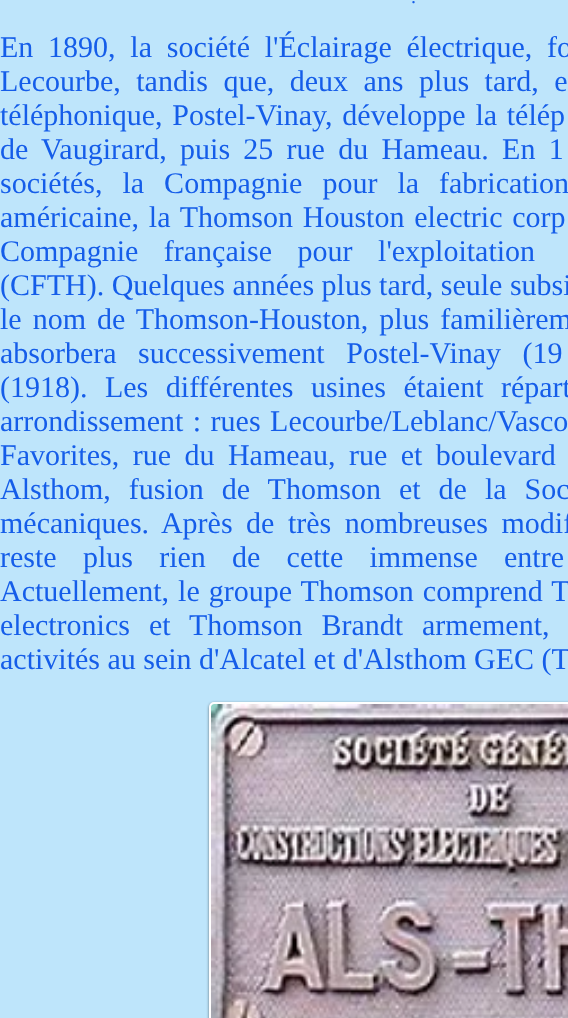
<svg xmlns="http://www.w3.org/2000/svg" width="568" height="1018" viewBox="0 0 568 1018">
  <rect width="100%" height="100%" fill="rgb(190,229,251)"/>
  <text x="411" y="3" font-family="Liberation Serif" font-size="20" fill="rgb(21,93,233)">.</text>
  <g font-family="Liberation Serif" font-size="30" fill="rgb(21,93,233)">
    <text>
      <tspan x="0" y="57" word-spacing="7.25">En 1890, la société l'Éclairage électrique, fo</tspan>
      <tspan x="0" y="91" word-spacing="8">Lecourbe, tandis que, deux ans plus tard, e</tspan>
      <tspan x="0" y="125" word-spacing="2.25">téléphonique, Postel-Vinay, développe la télép</tspan>
      <tspan x="0" y="159" word-spacing="5.75">de Vaugirard, puis 25 rue du Hameau. En 1</tspan>
      <tspan x="0" y="193" word-spacing="12.5">sociétés, la Compagnie pour la fabrication</tspan>
      <tspan x="0" y="227" word-spacing="2.25">américaine, la Thomson Houston electric corp</tspan>
      <tspan x="0" y="261" word-spacing="18">Compagnie française pour l'exploitation</tspan>
      <tspan x="0" y="295">(CFTH). Quelques années plus tard, seule subsi</tspan>
      <tspan x="0" y="329" word-spacing="3.5">le nom de Thomson-Houston, plus familièrem</tspan>
      <tspan x="0" y="363" word-spacing="14">absorbera successivement Postel-Vinay (19</tspan>
      <tspan x="0" y="397" word-spacing="10">(1918). Les différentes usines étaient répart</tspan>
      <tspan x="0" y="431" word-spacing="2">arrondissement : rues Lecourbe/Leblanc/Vasco</tspan>
      <tspan x="0" y="465" word-spacing="6">Favorites, rue du Hameau, rue et boulevard</tspan>
      <tspan x="0" y="499" word-spacing="10.5">Alsthom, fusion de Thomson et de la Soc</tspan>
      <tspan x="0" y="533" word-spacing="6">mécaniques. Après de très nombreuses modif</tspan>
      <tspan x="0" y="567" word-spacing="18.75">reste plus rien de cette immense entre</tspan>
      <tspan x="0" y="601" word-spacing="1.5">Actuellement, le groupe Thomson comprend T</tspan>
      <tspan x="0" y="635" word-spacing="11.5">electronics et Thomson Brandt armement,</tspan>
      <tspan x="0" y="669">activités au sein d'Alcatel et d'Alsthom GEC (T</tspan>
    </text>
  </g>
  <rect x="209" y="703" width="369" height="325" rx="5" fill="rgba(0,0,0,0.5)" filter="blur(1.5px)"/>
  <rect x="210" y="703" width="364" height="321" rx="4" fill="rgb(255,255,255)" stroke="rgb(255,255,255)" stroke-width="2"/>
  <image x="211" y="704" width="357" height="314" href="pic1.png"/>
</svg>
